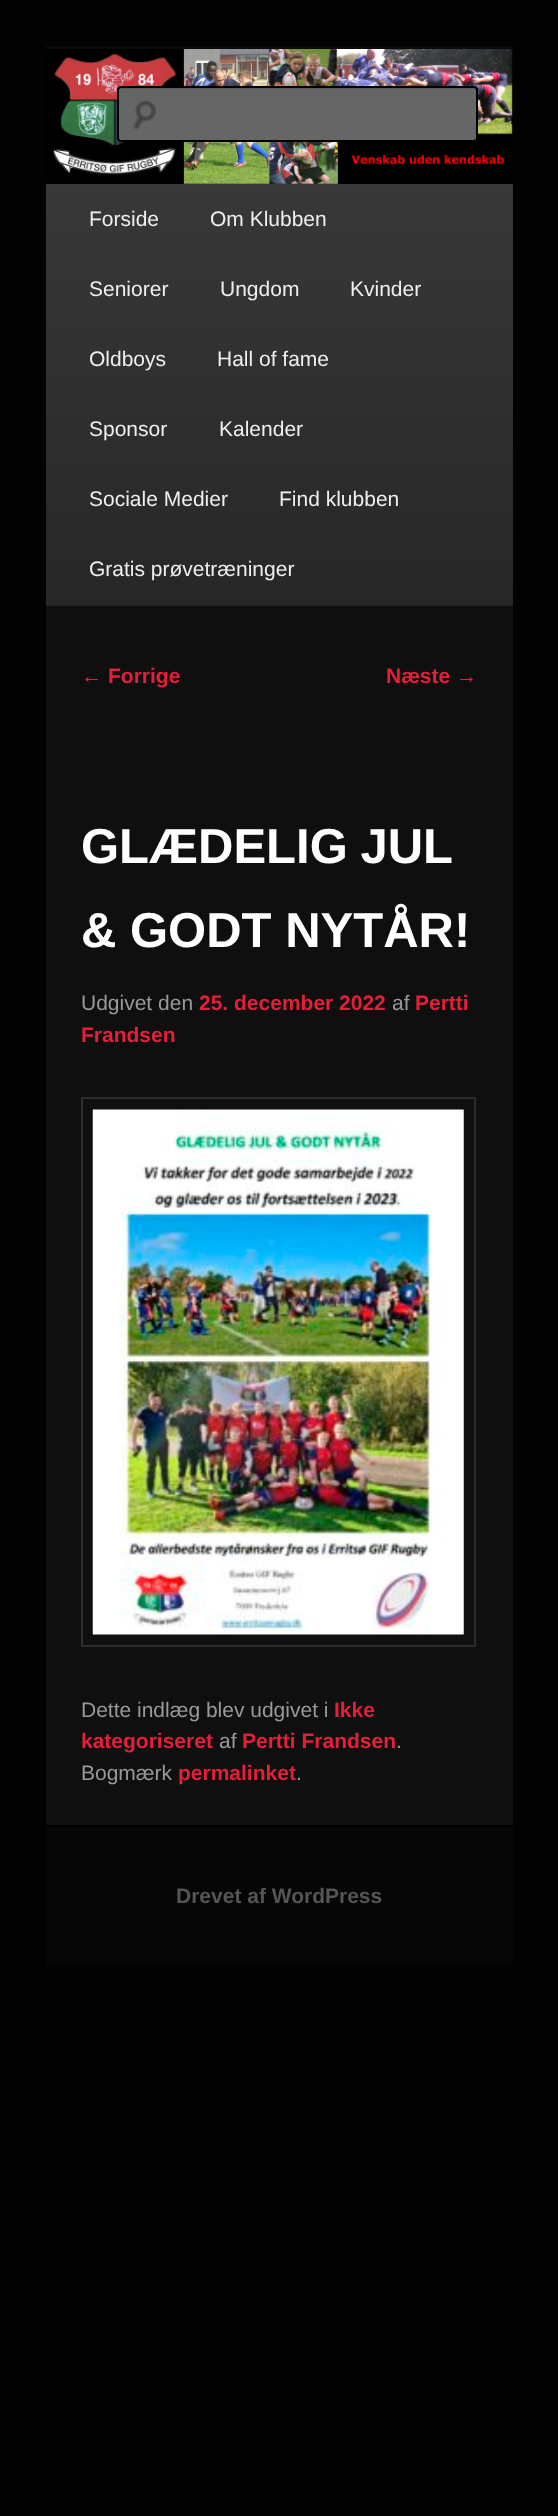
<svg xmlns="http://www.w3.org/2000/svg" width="558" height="2516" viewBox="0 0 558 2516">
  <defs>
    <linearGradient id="g1" gradientUnits="userSpaceOnUse" x1="279" y1="184" x2="279" y2="604"><stop offset="0" stop-color="rgb(56,56,56)"/><stop offset="1" stop-color="rgb(39,39,39)"/></linearGradient>
  </defs>
  <rect width="100%" height="100%" fill="rgb(3,2,2)"/>
  <rect x="46" y="50" width="467" height="1775" fill="rgb(15,15,15)"/>
  <rect x="46" y="46" width="467" height="4" fill="rgb(10,10,10)"/>
  <image x="46" y="49" width="467" height="135" href="pic1.png"/>
  <rect x="117" y="86" width="361" height="56" rx="4" fill="rgb(102,102,102)"/>
  <image x="133" y="100" width="23" height="30" href="pic2.png"/>
  <path d="M121 89H474C475 89 476 90 476 91C476 90 476 88 474 88H121C119 88 119 90 119 91C119 90 120 89 121 89Z" fill="rgb(92,92,92)"/>
  <rect x="118" y="87" width="359" height="54" rx="3" fill="none" stroke="rgb(0,0,0)" stroke-width="2"/>
  <rect x="46" y="184" width="467" height="420" fill="url(#g1)"/>
  <rect x="46" y="604" width="467" height="2" fill="rgb(34,34,34)"/>
  <g font-family="Liberation Sans" font-size="21" fill="rgb(238,238,238)">
    <text x="89" y="226">Forside</text>
    <text x="210" y="226">Om Klubben</text>
    <text x="89" y="296">Seniorer</text>
    <text x="220" y="296">Ungdom</text>
    <text x="350" y="296">Kvinder</text>
    <text x="89" y="366">Oldboys</text>
    <text x="217" y="366">Hall of fame</text>
    <text x="89" y="436">Sponsor</text>
    <text x="219" y="436">Kalender</text>
    <text x="89" y="506">Sociale Medier</text>
    <text x="279" y="506">Find klubben</text>
    <text x="89" y="576">Gratis prøvetræninger</text>
  </g>
  <text x="81" y="683" font-family="Liberation Sans" font-size="21" fill="rgb(228,31,57)">←</text>
  <g font-family="Liberation Sans" font-size="21" font-weight="bold" fill="rgb(228,31,57)">
    <text x="108" y="683">Forrige</text>
    <text x="386" y="683">Næste</text>
  </g>
  <text x="456" y="683" font-family="Liberation Sans" font-size="21" fill="rgb(228,31,57)">→</text>
  <g font-family="Liberation Sans" font-size="49" font-weight="bold" fill="rgb(255,255,255)">
    <text>
      <tspan x="81" y="863" word-spacing="-1">GLÆDELIG JUL</tspan>
      <tspan x="81" y="947">&amp; GODT NYTÅR!</tspan>
    </text>
  </g>
  <text x="81" y="1010" font-family="Liberation Sans" font-size="21" fill="rgb(153,153,153)">Udgivet den</text>
  <text x="199" y="1010" font-family="Liberation Sans" font-size="21" font-weight="bold" fill="rgb(228,31,57)">25. december 2022</text>
  <text x="392" y="1010" font-family="Liberation Sans" font-size="21" fill="rgb(153,153,153)">af</text>
  <g font-family="Liberation Sans" font-size="21" font-weight="bold" fill="rgb(228,31,57)">
    <text x="415" y="1010">Pertti</text>
    <text x="81" y="1042">Frandsen</text>
  </g>
  <rect x="82" y="1098" width="393" height="548" fill="none" stroke="rgb(44,44,44)" stroke-width="2"/>
  <image x="92" y="1109" width="372" height="526" href="pic3.png"/>
  <text x="81" y="1717" font-family="Liberation Sans" font-size="21" fill="rgb(153,153,153)">Dette indlæg blev udgivet i</text>
  <g font-family="Liberation Sans" font-size="21" font-weight="bold" fill="rgb(228,31,57)">
    <text x="334" y="1717">Ikke</text>
    <text x="81" y="1748">kategoriseret</text>
  </g>
  <text x="219" y="1748" font-family="Liberation Sans" font-size="21" fill="rgb(153,153,153)">af</text>
  <text x="242" y="1748" font-family="Liberation Sans" font-size="21" font-weight="bold" fill="rgb(228,31,57)">Pertti Frandsen</text>
  <g font-family="Liberation Sans" font-size="21" fill="rgb(153,153,153)">
    <text x="396" y="1748">.</text>
    <text x="81" y="1780">Bogmærk</text>
  </g>
  <text x="178" y="1780" font-family="Liberation Sans" font-size="21" font-weight="bold" fill="rgb(228,31,57)">permalinket</text>
  <text x="296" y="1780" font-family="Liberation Sans" font-size="21" fill="rgb(153,153,153)">.</text>
  <rect x="46" y="1827" width="467" height="138" fill="rgb(6,6,6)"/>
  <rect x="46" y="1825" width="467" height="2" fill="rgb(0,0,0)"/>
  <text x="176" y="1903" font-family="Liberation Sans" font-size="21" font-weight="bold" fill="rgb(85,85,85)">Drevet af WordPress</text>
</svg>
